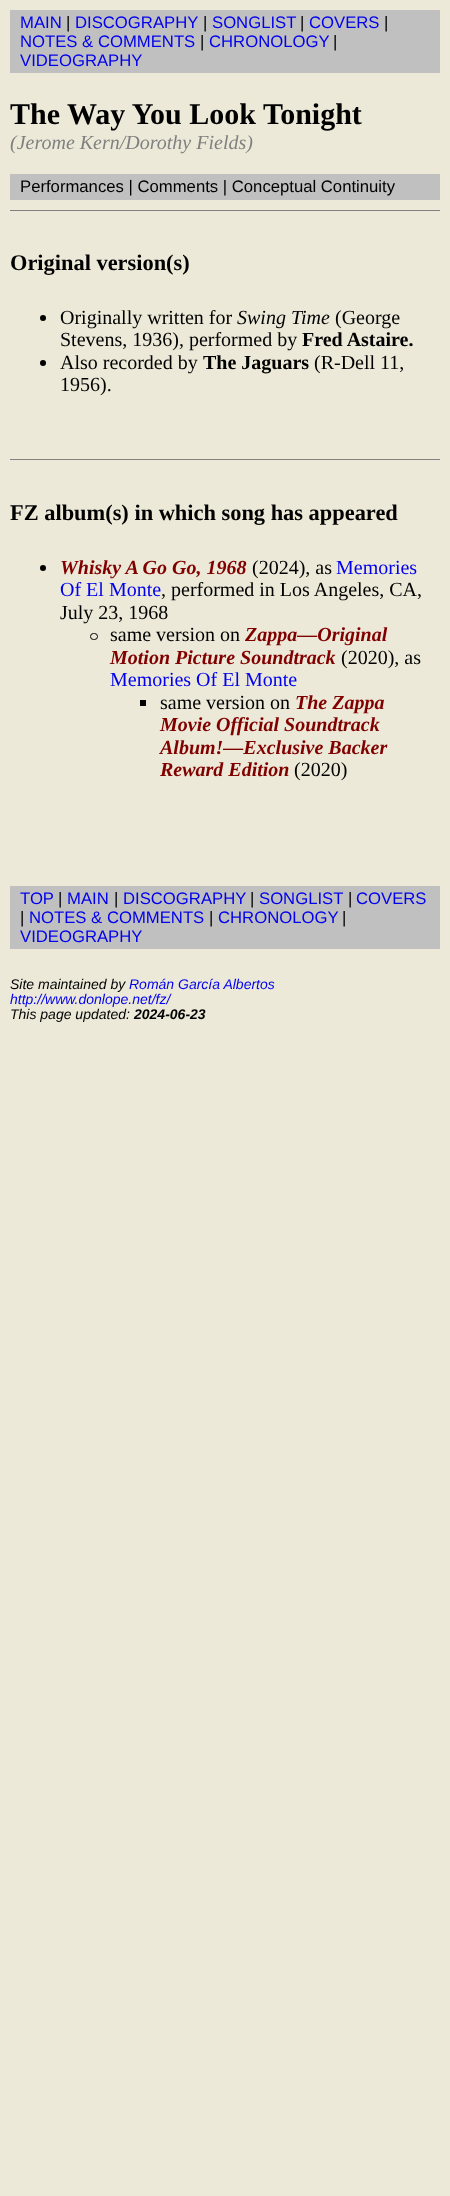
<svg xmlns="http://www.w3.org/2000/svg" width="450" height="2196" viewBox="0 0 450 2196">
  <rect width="100%" height="100%" fill="rgb(236,233,216)"/>
  <rect x="10" y="10" width="430" height="63" fill="rgb(192,192,192)"/>
  <text x="20" y="28" font-family="Liberation Sans" font-size="16.7" fill="rgb(0,0,238)">MAIN</text>
  <text x="66" y="28" font-family="Liberation Sans" font-size="16.7" fill="rgb(0,0,0)">|</text>
  <text x="75" y="28" font-family="Liberation Sans" font-size="16.7" fill="rgb(0,0,238)">DISCOGRAPHY</text>
  <text x="203" y="28" font-family="Liberation Sans" font-size="16.7" fill="rgb(0,0,0)">|</text>
  <text x="212" y="28" font-family="Liberation Sans" font-size="16.7" fill="rgb(0,0,238)">SONGLIST</text>
  <text x="300" y="28" font-family="Liberation Sans" font-size="16.7" fill="rgb(0,0,0)">|</text>
  <text x="309" y="28" font-family="Liberation Sans" font-size="16.7" fill="rgb(0,0,238)">COVERS</text>
  <text x="384" y="28" font-family="Liberation Sans" font-size="16.7" fill="rgb(0,0,0)">|</text>
  <text x="20" y="47" font-family="Liberation Sans" font-size="16.7" fill="rgb(0,0,238)">NOTES &amp; COMMENTS</text>
  <text x="200" y="47" font-family="Liberation Sans" font-size="16.7" fill="rgb(0,0,0)">|</text>
  <text x="209" y="47" font-family="Liberation Sans" font-size="16.7" fill="rgb(0,0,238)">CHRONOLOGY</text>
  <text x="333" y="47" font-family="Liberation Sans" font-size="16.7" fill="rgb(0,0,0)">|</text>
  <text x="20" y="66" font-family="Liberation Sans" font-size="16.7" fill="rgb(0,0,238)">VIDEOGRAPHY</text>
  <text x="10" y="124" font-family="Liberation Serif" font-size="30" font-weight="bold" fill="rgb(0,0,0)">The Way You Look Tonight</text>
  <text x="10" y="149" font-family="Liberation Serif" font-size="20" font-style="italic" fill="rgb(128,128,128)">(Jerome Kern/Dorothy Fields)</text>
  <rect x="10" y="174" width="430" height="26" fill="rgb(192,192,192)"/>
  <text x="20" y="192" font-family="Liberation Sans" font-size="16.7" fill="rgb(0,0,0)">Performances | Comments | Conceptual Continuity</text>
  <rect x="10" y="210" width="430" height="1" fill="rgb(128,128,128)"/>
  <text x="10" y="270" font-family="Liberation Serif" font-size="22.4" font-weight="bold" fill="rgb(0,0,0)">Original version(s)</text>
  <circle cx="43" cy="318" r="3" fill="rgb(0,0,0)"/>
  <text x="60" y="324" font-family="Liberation Serif" font-size="20" fill="rgb(0,0,0)">Originally written for</text>
  <text x="237" y="324" font-family="Liberation Serif" font-size="20" font-style="italic" fill="rgb(0,0,0)">Swing Time</text>
  <g font-family="Liberation Serif" font-size="20" fill="rgb(0,0,0)">
    <text x="335" y="324">(George</text>
    <text x="60" y="346">Stevens, 1936), performed by</text>
  </g>
  <text x="302" y="346" font-family="Liberation Serif" font-size="20" font-weight="bold" fill="rgb(0,0,0)">Fred Astaire.</text>
  <circle cx="43" cy="363" r="3" fill="rgb(0,0,0)"/>
  <text x="60" y="369" font-family="Liberation Serif" font-size="20" fill="rgb(0,0,0)">Also recorded by</text>
  <text x="203" y="369" font-family="Liberation Serif" font-size="20" font-weight="bold" fill="rgb(0,0,0)">The Jaguars</text>
  <g font-family="Liberation Serif" font-size="20" fill="rgb(0,0,0)">
    <text x="314" y="369">(R-Dell 11,</text>
    <text x="60" y="391">1956).</text>
  </g>
  <rect x="10" y="459" width="430" height="1" fill="rgb(128,128,128)"/>
  <text x="10" y="520" font-family="Liberation Serif" font-size="22.4" font-weight="bold" fill="rgb(0,0,0)">FZ album(s) in which song has appeared</text>
  <circle cx="43" cy="568" r="3" fill="rgb(0,0,0)"/>
  <text x="60" y="574" font-family="Liberation Serif" font-size="20" font-weight="bold" font-style="italic" fill="rgb(128,0,0)">Whisky A Go Go, 1968</text>
  <text x="252" y="574" font-family="Liberation Serif" font-size="20" fill="rgb(0,0,0)">(2024), as</text>
  <g font-family="Liberation Serif" font-size="20" fill="rgb(0,0,238)">
    <text x="336" y="574">Memories</text>
    <text x="60" y="596">Of El Monte</text>
  </g>
  <g font-family="Liberation Serif" font-size="20" fill="rgb(0,0,0)">
    <text x="161" y="596">, performed in Los Angeles, CA,</text>
    <text x="60" y="619">July 23, 1968</text>
  </g>
  <rect x="90.5" y="633.5" width="7" height="6" rx="3" fill="none" stroke="rgb(0,0,0)"/>
  <text x="110" y="641" font-family="Liberation Serif" font-size="20" fill="rgb(0,0,0)">same version on</text>
  <g font-family="Liberation Serif" font-size="20" font-weight="bold" font-style="italic" fill="rgb(128,0,0)">
    <text x="245" y="641">Zappa—Original</text>
    <text x="110" y="664">Motion Picture Soundtrack</text>
  </g>
  <text x="341" y="664" font-family="Liberation Serif" font-size="20" fill="rgb(0,0,0)">(2020), as</text>
  <text x="110" y="686" font-family="Liberation Serif" font-size="20" fill="rgb(0,0,238)">Memories Of El Monte</text>
  <rect x="140" y="700" width="6" height="6" fill="rgb(0,0,0)"/>
  <text x="160" y="709" font-family="Liberation Serif" font-size="20" fill="rgb(0,0,0)">same version on</text>
  <g font-family="Liberation Serif" font-size="20" font-weight="bold" font-style="italic" fill="rgb(128,0,0)">
    <text x="295" y="709">The Zappa</text>
    <text>
      <tspan x="160" y="731">Movie Official Soundtrack</tspan>
      <tspan x="160" y="754">Album!—Exclusive Backer</tspan>
      <tspan x="160" y="776">Reward Edition</tspan>
    </text>
  </g>
  <text x="294" y="776" font-family="Liberation Serif" font-size="20" fill="rgb(0,0,0)">(2020)</text>
  <rect x="10" y="886" width="430" height="63" fill="rgb(192,192,192)"/>
  <text x="20" y="904" font-family="Liberation Sans" font-size="16.7" fill="rgb(0,0,238)">TOP</text>
  <text x="58" y="904" font-family="Liberation Sans" font-size="16.7" fill="rgb(0,0,0)">|</text>
  <text x="67" y="904" font-family="Liberation Sans" font-size="16.7" fill="rgb(0,0,238)">MAIN</text>
  <text x="114" y="904" font-family="Liberation Sans" font-size="16.7" fill="rgb(0,0,0)">|</text>
  <text x="123" y="904" font-family="Liberation Sans" font-size="16.7" fill="rgb(0,0,238)">DISCOGRAPHY</text>
  <text x="250" y="904" font-family="Liberation Sans" font-size="16.7" fill="rgb(0,0,0)">|</text>
  <text x="259" y="904" font-family="Liberation Sans" font-size="16.7" fill="rgb(0,0,238)">SONGLIST</text>
  <text x="348" y="904" font-family="Liberation Sans" font-size="16.7" fill="rgb(0,0,0)">|</text>
  <text x="356" y="904" font-family="Liberation Sans" font-size="16.7" fill="rgb(0,0,238)">COVERS</text>
  <text x="20" y="923" font-family="Liberation Sans" font-size="16.7" fill="rgb(0,0,0)">|</text>
  <text x="29" y="923" font-family="Liberation Sans" font-size="16.7" fill="rgb(0,0,238)">NOTES &amp; COMMENTS</text>
  <text x="209" y="923" font-family="Liberation Sans" font-size="16.7" fill="rgb(0,0,0)">|</text>
  <text x="218" y="923" font-family="Liberation Sans" font-size="16.7" fill="rgb(0,0,238)">CHRONOLOGY</text>
  <text x="342" y="923" font-family="Liberation Sans" font-size="16.7" fill="rgb(0,0,0)">|</text>
  <text x="20" y="942" font-family="Liberation Sans" font-size="16.7" fill="rgb(0,0,238)">VIDEOGRAPHY</text>
  <text x="10" y="989" font-family="Liberation Sans" font-size="14" font-style="italic" fill="rgb(0,0,0)">Site maintained by</text>
  <g font-family="Liberation Sans" font-size="14" font-style="italic" fill="rgb(0,0,238)">
    <text x="129" y="989">Román García Albertos</text>
    <text x="10" y="1004">http://www.donlope.net/fz/</text>
  </g>
  <text x="10" y="1019" font-family="Liberation Sans" font-size="14" font-style="italic" fill="rgb(0,0,0)">This page updated:</text>
  <text x="134" y="1019" font-family="Liberation Sans" font-size="14" font-weight="bold" font-style="italic" fill="rgb(0,0,0)">2024-06-23</text>
</svg>
